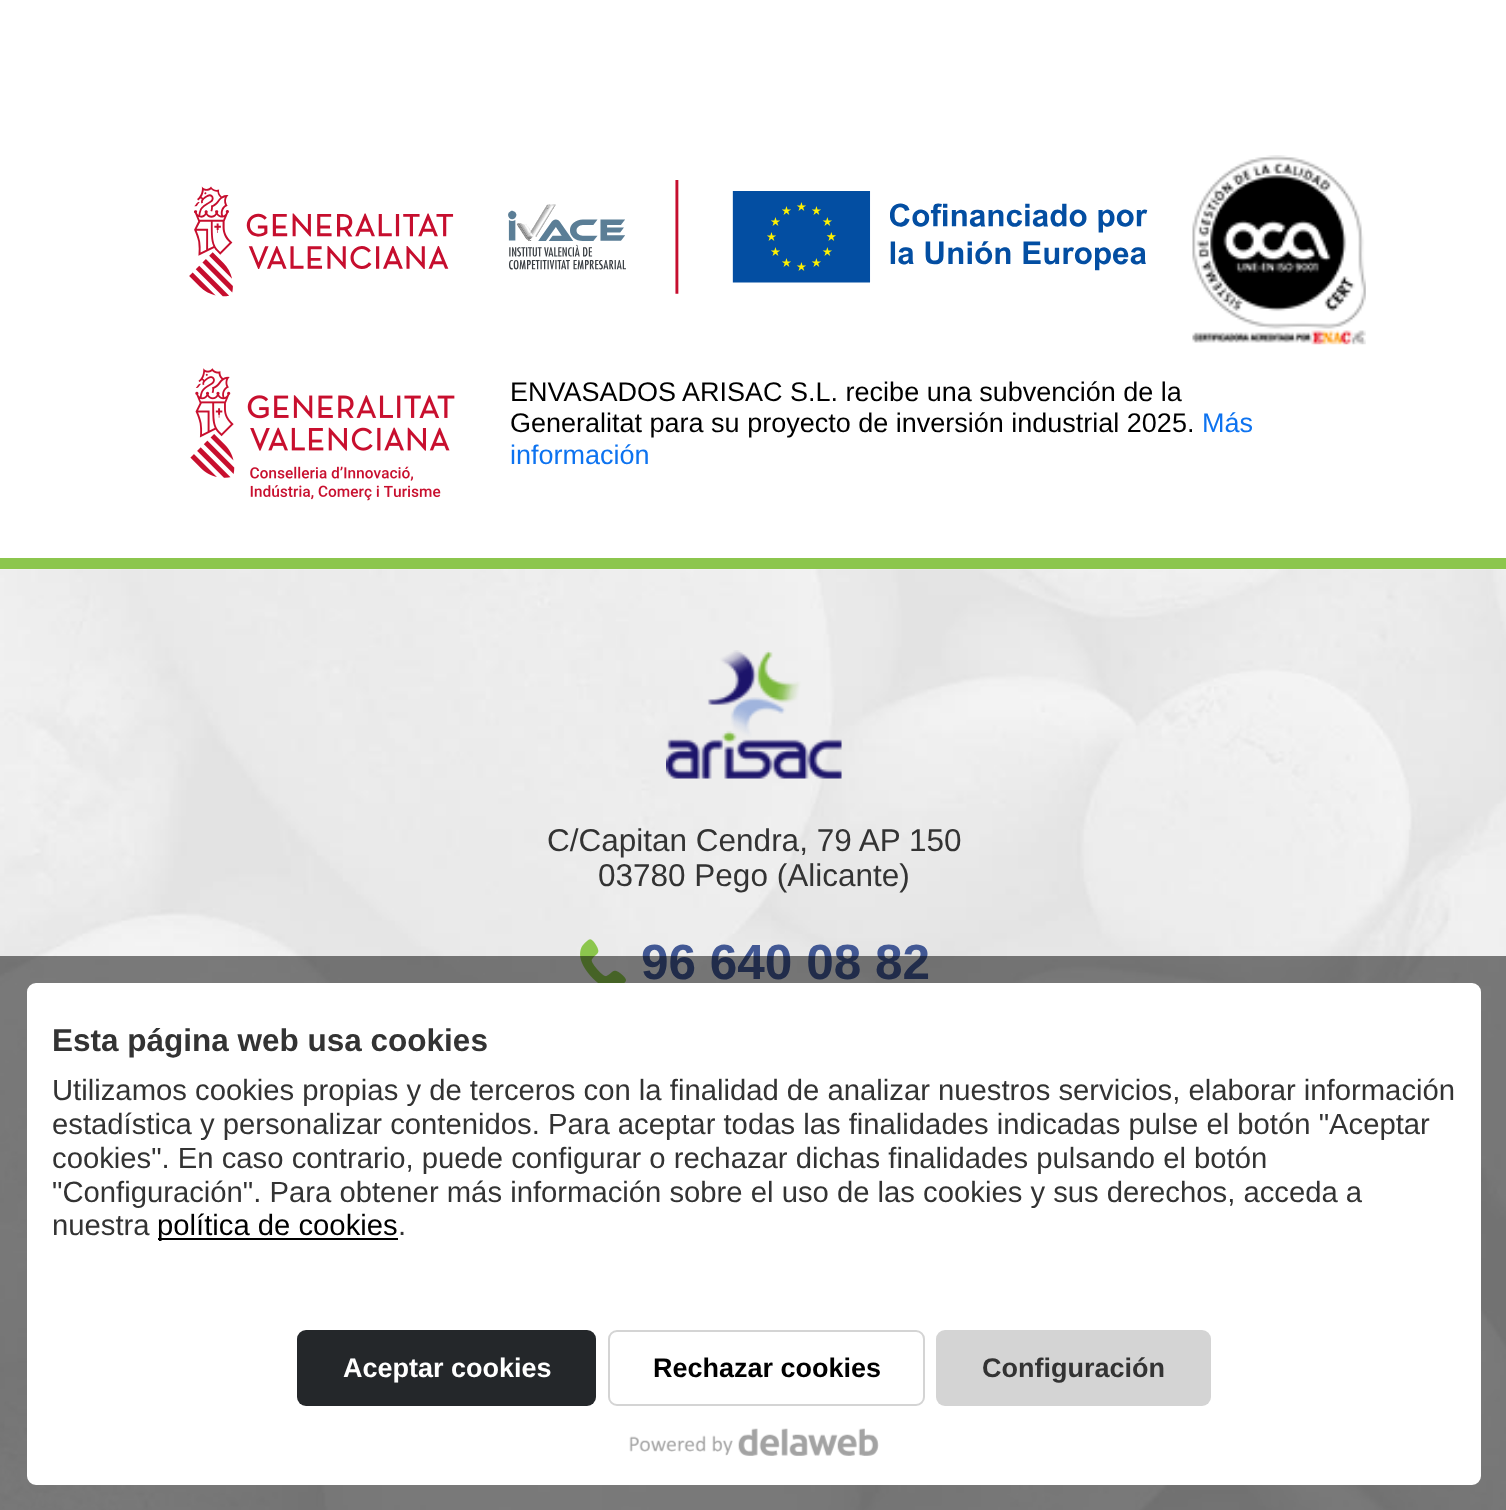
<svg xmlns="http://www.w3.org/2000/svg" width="1506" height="1510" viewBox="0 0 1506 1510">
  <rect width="100%" height="100%" fill="rgb(255,255,255)"/>
  <image x="189" y="180" width="959" height="117" href="pic1.png"/>
  <image x="1192" y="155" width="174" height="190" href="pic2.png"/>
  <image x="190" y="368" width="265" height="133" href="pic3.png"/>
  <g font-family="Liberation Sans" font-size="27" fill="rgb(0,0,0)">
    <text>
      <tspan x="510" y="401">ENVASADOS ARISAC S.L. recibe una subvención de la</tspan>
      <tspan x="510" y="432">Generalitat para su proyecto de inversión industrial 2025.</tspan>
    </text>
  </g>
  <g font-family="Liberation Sans" font-size="27" fill="rgb(13,115,240)">
    <text x="1202" y="432">Más</text>
    <text x="510" y="464">información</text>
  </g>
  <image x="0" y="569" width="1506" height="941" href="pic4.png"/>
  <rect x="0" y="558" width="1506" height="11" fill="rgb(140,198,77)"/>
  <image x="666" y="650" width="176" height="129" href="pic5.png"/>
  <g font-family="Liberation Sans" font-size="31.5" fill="rgb(51,51,51)">
    <text x="547" y="851">C/Capitan Cendra, 79 AP 150</text>
    <text x="598" y="886">03780 Pego (Alicante)</text>
  </g>
  <image x="580" y="939" width="46" height="44" href="pic6.png"/>
  <text x="641" y="979" font-family="Liberation Sans" font-size="49.5" font-weight="bold" fill="rgb(66,88,148)">96 640 08 82</text>
  <rect x="0" y="956" width="1506" height="554" fill="rgba(0,0,0,0.5)"/>
  <rect x="28" y="984" width="1452" height="500" rx="8" fill="rgb(255,255,255)" stroke="rgb(255,255,255)" stroke-width="2"/>
  <text x="52" y="1051" font-family="Liberation Sans" font-size="31.5" font-weight="bold" fill="rgb(51,51,51)">Esta página web usa cookies</text>
  <g font-family="Liberation Sans" font-size="29.25" fill="rgb(51,51,51)">
    <text>
      <tspan x="52" y="1100">Utilizamos cookies propias y de terceros con la finalidad de analizar nuestros servicios, elaborar información</tspan>
      <tspan x="52" y="1134">estadística y personalizar contenidos. Para aceptar todas las finalidades indicadas pulse el botón "Aceptar</tspan>
      <tspan x="52" y="1168">cookies". En caso contrario, puede configurar o rechazar dichas finalidades pulsando el botón</tspan>
      <tspan x="52" y="1202">"Configuración". Para obtener más información sobre el uso de las cookies y sus derechos, acceda a</tspan>
      <tspan x="52" y="1235">nuestra</tspan>
    </text>
  </g>
  <rect x="158" y="1238" width="240" height="2" fill="rgb(0,0,0)"/>
  <text x="157" y="1235" font-family="Liberation Sans" font-size="29.25" fill="rgb(0,0,0)">política de cookies</text>
  <text x="398" y="1235" font-family="Liberation Sans" font-size="29.25" fill="rgb(51,51,51)">.</text>
  <rect x="297" y="1330" width="299" height="76" rx="9" fill="rgb(36,39,42)"/>
  <text x="343" y="1377" font-family="Liberation Sans" font-size="27" font-weight="bold" fill="rgb(255,255,255)">Aceptar cookies</text>
  <rect x="609" y="1331" width="315" height="74" rx="8" fill="none" stroke="rgb(212,212,212)" stroke-width="2"/>
  <text x="653" y="1377" font-family="Liberation Sans" font-size="27" font-weight="bold" fill="rgb(0,0,0)">Rechazar cookies</text>
  <rect x="936" y="1330" width="275" height="76" rx="9" fill="rgb(212,212,212)"/>
  <text x="982" y="1377" font-family="Liberation Sans" font-size="27" font-weight="bold" fill="rgb(51,51,51)">Configuración</text>
  <image x="629" y="1428" width="250" height="28" href="pic7.png"/>
</svg>
